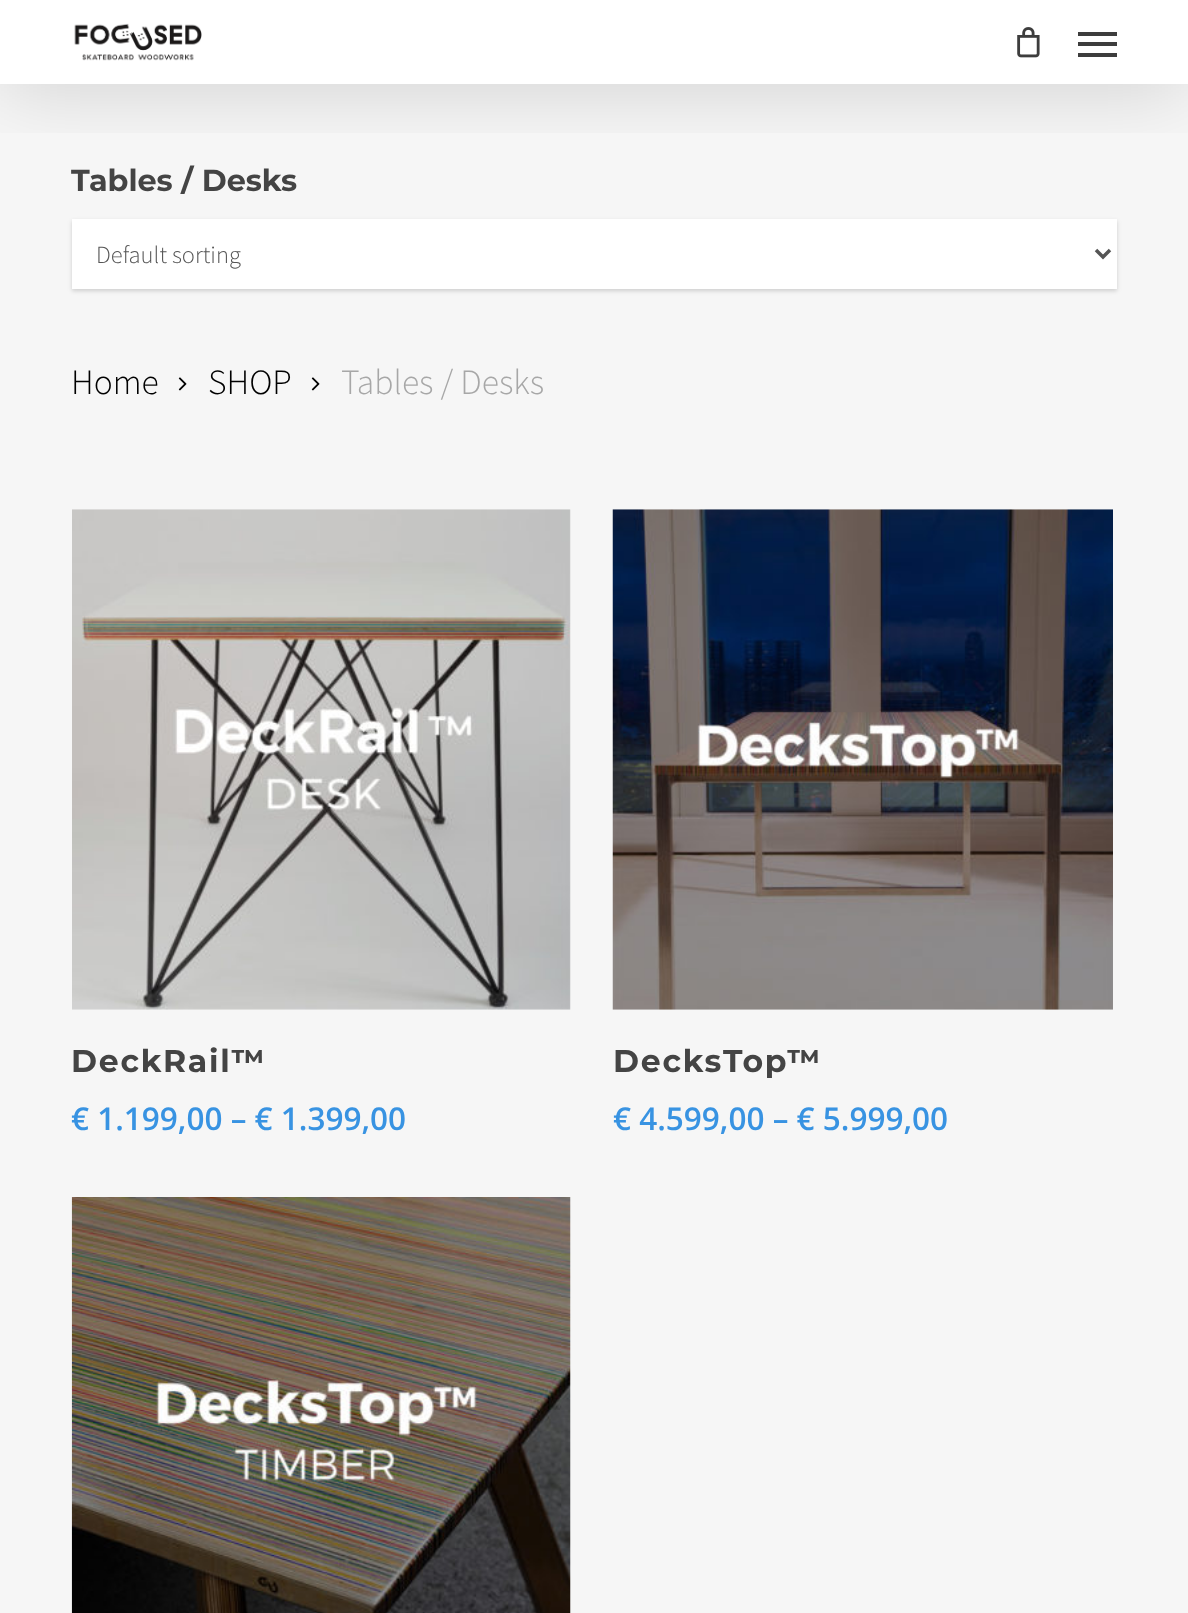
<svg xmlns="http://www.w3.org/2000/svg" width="1188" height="1613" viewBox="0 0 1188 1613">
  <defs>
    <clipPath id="clip1"><rect x="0" y="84" width="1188" height="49"/></clipPath>
  </defs>
  <rect width="100%" height="100%" fill="rgb(255,255,255)"/>
  <rect x="0" y="84" width="1188" height="1529" fill="rgb(246,246,246)"/>
  <g clip-path="url(#clip1)">
    <rect x="0" y="5" width="1188" height="84" fill="rgba(0,0,0,0.15)" filter="blur(39.5px)"/>
  </g>
  <image x="74" y="23" width="128" height="38" href="pic1.png"/>
  <image x="1017" y="27" width="23" height="31" href="pic2.png"/>
  <rect x="1078" y="32" width="39" height="4" fill="rgb(61,61,61)"/>
  <rect x="1078" y="53" width="39" height="4" fill="rgb(61,61,61)"/>
  <rect x="1078" y="42" width="39" height="4" fill="rgb(61,61,61)"/>
  <text x="71" y="191" font-family="Montserrat" font-size="30.25" font-weight="bold" fill="rgb(68,68,68)">Tables / Desks</text>
  <rect x="72" y="221" width="1045" height="70" fill="rgba(0,0,0,0.16)" filter="blur(2px)"/>
  <rect x="72" y="219" width="1045" height="70" fill="rgb(255,255,255)"/>
  <path d="M1096 250L1103 257L1110 250" fill="none" stroke="rgb(85,85,85)" stroke-width="3.5"/>
  <text x="96" y="263" font-family="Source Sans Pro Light" font-size="24.5" font-weight="300" fill="rgb(85,85,85)">Default sorting</text>
  <text x="71" y="394" font-family="Source Sans Pro Light" font-size="35.5" font-weight="300" fill="rgb(0,0,0)">Home</text>
  <image x="178" y="377" width="9" height="14" href="pic3.png"/>
  <text x="208" y="394" font-family="Source Sans Pro Light" font-size="35.5" font-weight="300" fill="rgb(0,0,0)">SHOP</text>
  <image x="311" y="377" width="9" height="14" href="pic3.png"/>
  <text x="341" y="394" font-family="Source Sans Pro Light" font-size="35.5" font-weight="300" fill="rgb(167,167,167)">Tables / Desks</text>
  <image x="72" y="509" width="499" height="501" href="pic4.png"/>
  <text x="71" y="1072" font-family="Montserrat" font-size="31.5" font-weight="bold" letter-spacing="1.75" fill="rgb(68,68,68)">DeckRail™</text>
  <text x="71" y="1130" font-family="Open Sans" font-size="31.5" font-weight="600" fill="rgb(56,147,226)">€ 1.199,00 – € 1.399,00</text>
  <image x="612" y="509" width="501" height="501" href="pic5.png"/>
  <text x="613" y="1072" font-family="Montserrat" font-size="31.5" font-weight="bold" letter-spacing="1.75" fill="rgb(68,68,68)">DecksTop™</text>
  <text x="613" y="1130" font-family="Open Sans" font-size="31.5" font-weight="600" fill="rgb(56,147,226)">€ 4.599,00 – € 5.999,00</text>
  <image x="71" y="1197" width="500" height="416" href="pic6.png"/>
</svg>
